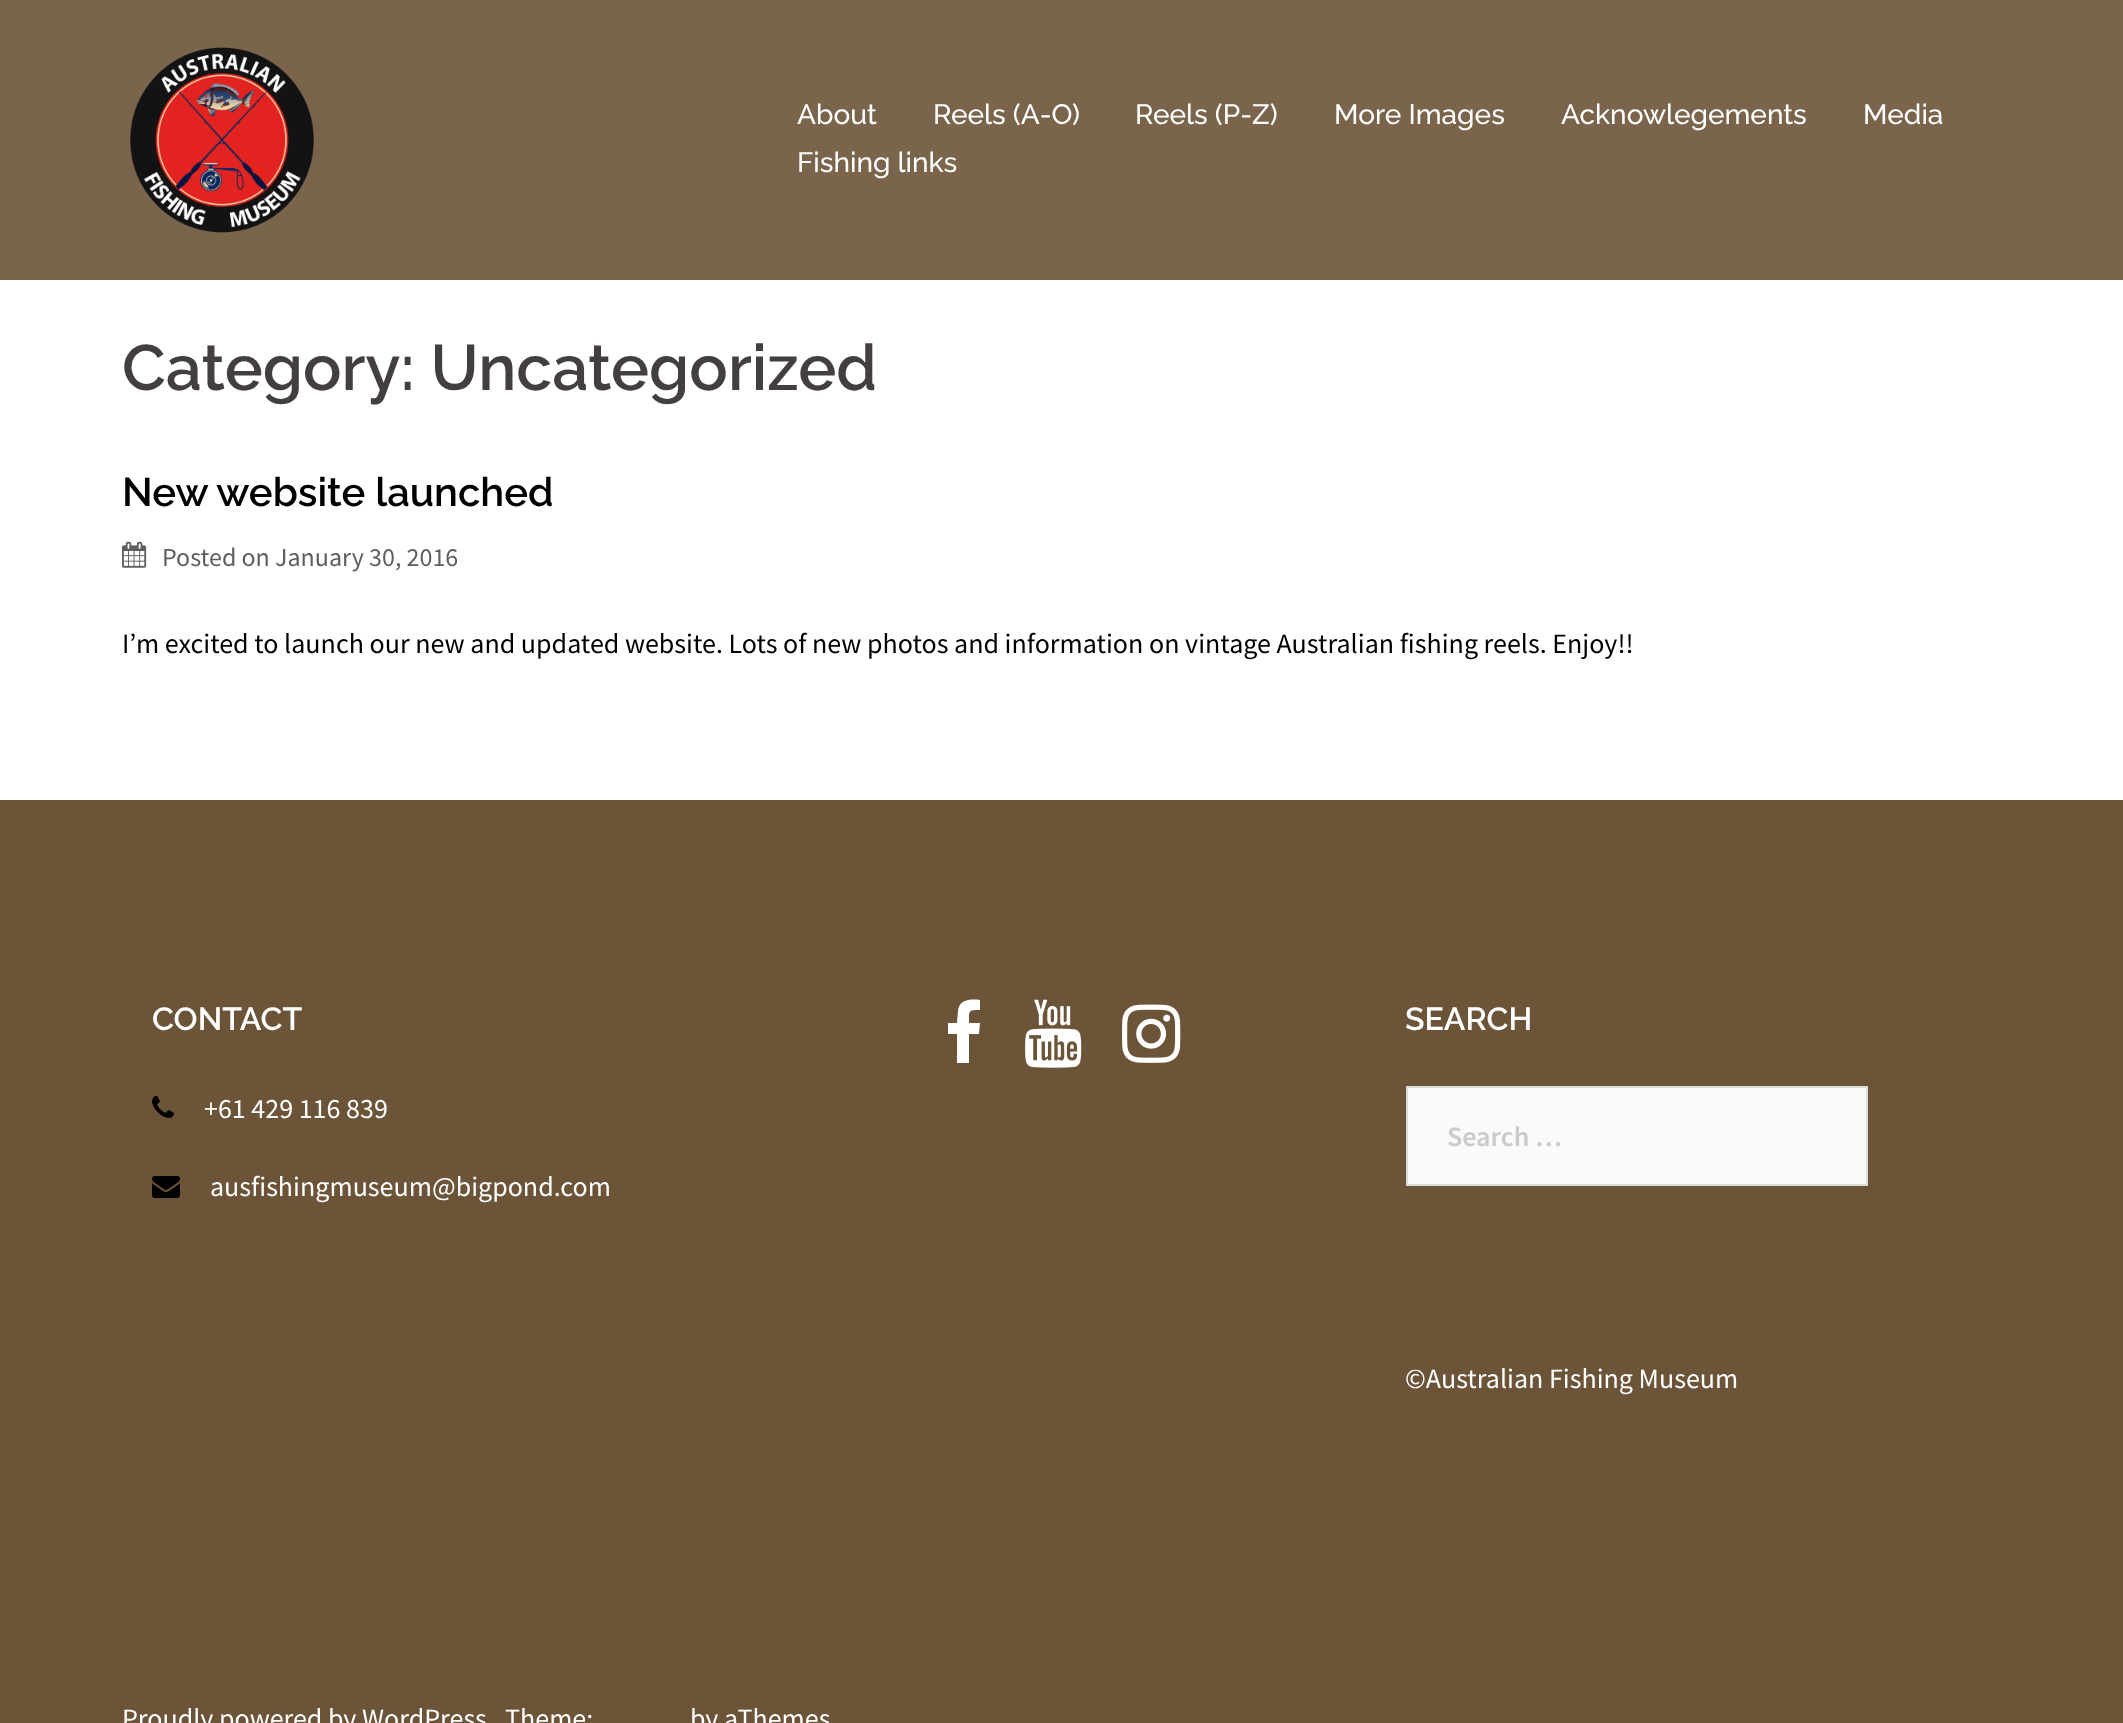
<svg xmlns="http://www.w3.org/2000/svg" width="2123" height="1723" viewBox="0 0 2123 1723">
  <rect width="100%" height="100%" fill="rgb(255,255,255)"/>
  <rect x="0" y="0" width="2123" height="280" fill="rgb(122,101,76)"/>
  <image x="130" y="47" width="184" height="186" href="pic1.png"/>
  <g font-family="Raleway" font-size="28" font-weight="500" fill="rgb(255,255,255)">
    <text x="797" y="124">About</text>
    <text x="933" y="124">Reels (A-O)</text>
    <text x="1135" y="124">Reels (P-Z)</text>
    <text x="1334" y="124">More Images</text>
    <text x="1561" y="124">Acknowlegements</text>
    <text x="1863" y="124">Media</text>
    <text x="797" y="172">Fishing links</text>
  </g>
  <text x="122" y="390" font-family="Raleway" font-size="64" font-weight="600" fill="rgb(68,63,63)">Category: Uncategorized</text>
  <text x="122" y="506" font-family="Raleway" font-size="40" font-weight="600" fill="rgb(0,0,0)">New website launched</text>
  <image x="122" y="541" width="25" height="27" href="pic2.png"/>
  <text x="162" y="566" font-family="Source Sans Pro" font-size="26" fill="rgb(94,94,94)">Posted on January 30, 2016</text>
  <text x="122" y="653" font-family="Source Sans Pro" font-size="28" fill="rgb(0,0,0)">I’m excited to launch our new and updated website. Lots of new photos and information on vintage Australian fishing reels. Enjoy!!</text>
  <rect x="0" y="800" width="2123" height="923" fill="rgb(107,84,56)"/>
  <text x="152" y="1030" font-family="Raleway" font-size="32" font-weight="600" fill="rgb(255,255,255)">CONTACT</text>
  <image x="152" y="1096" width="22" height="22" href="pic3.png"/>
  <text x="204" y="1118" font-family="Source Sans Pro" font-size="28" fill="rgb(255,255,255)">+61 429 116 839</text>
  <image x="152" y="1176" width="28" height="22" href="pic4.png"/>
  <text x="210" y="1196" font-family="Source Sans Pro" font-size="28" fill="rgb(255,255,255)">ausfishingmuseum@bigpond.com</text>
  <path d="M980 1000V1010C968 1010 969 1010 969 1023H980L979 1034H969V1063H957V1034H948V1023H957L958 1011C959 999 971 999 980 1000Z" fill="rgb(255,255,255)"/>
  <image x="1025" y="999" width="57" height="69" href="pic5.png"/>
  <image x="1122" y="1004" width="59" height="59" href="pic6.png"/>
  <text x="1405" y="1030" font-family="Raleway" font-size="32" font-weight="600" fill="rgb(255,255,255)">SEARCH</text>
  <rect x="1407" y="1087" width="460" height="98" fill="rgb(250,250,250)" stroke="rgb(219,219,219)" stroke-width="2"/>
  <text x="1447" y="1146" font-family="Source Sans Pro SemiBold" font-size="28" font-weight="600" fill="rgb(202,202,202)">Search …</text>
  <g font-family="Source Sans Pro" font-size="28" fill="rgb(255,255,255)">
    <text x="1405" y="1388">©Australian Fishing Museum</text>
    <text x="122" y="1728">Proudly powered by WordPress</text>
    <text x="505" y="1728">Theme:</text>
    <text x="690" y="1728">by aThemes</text>
  </g>
</svg>
